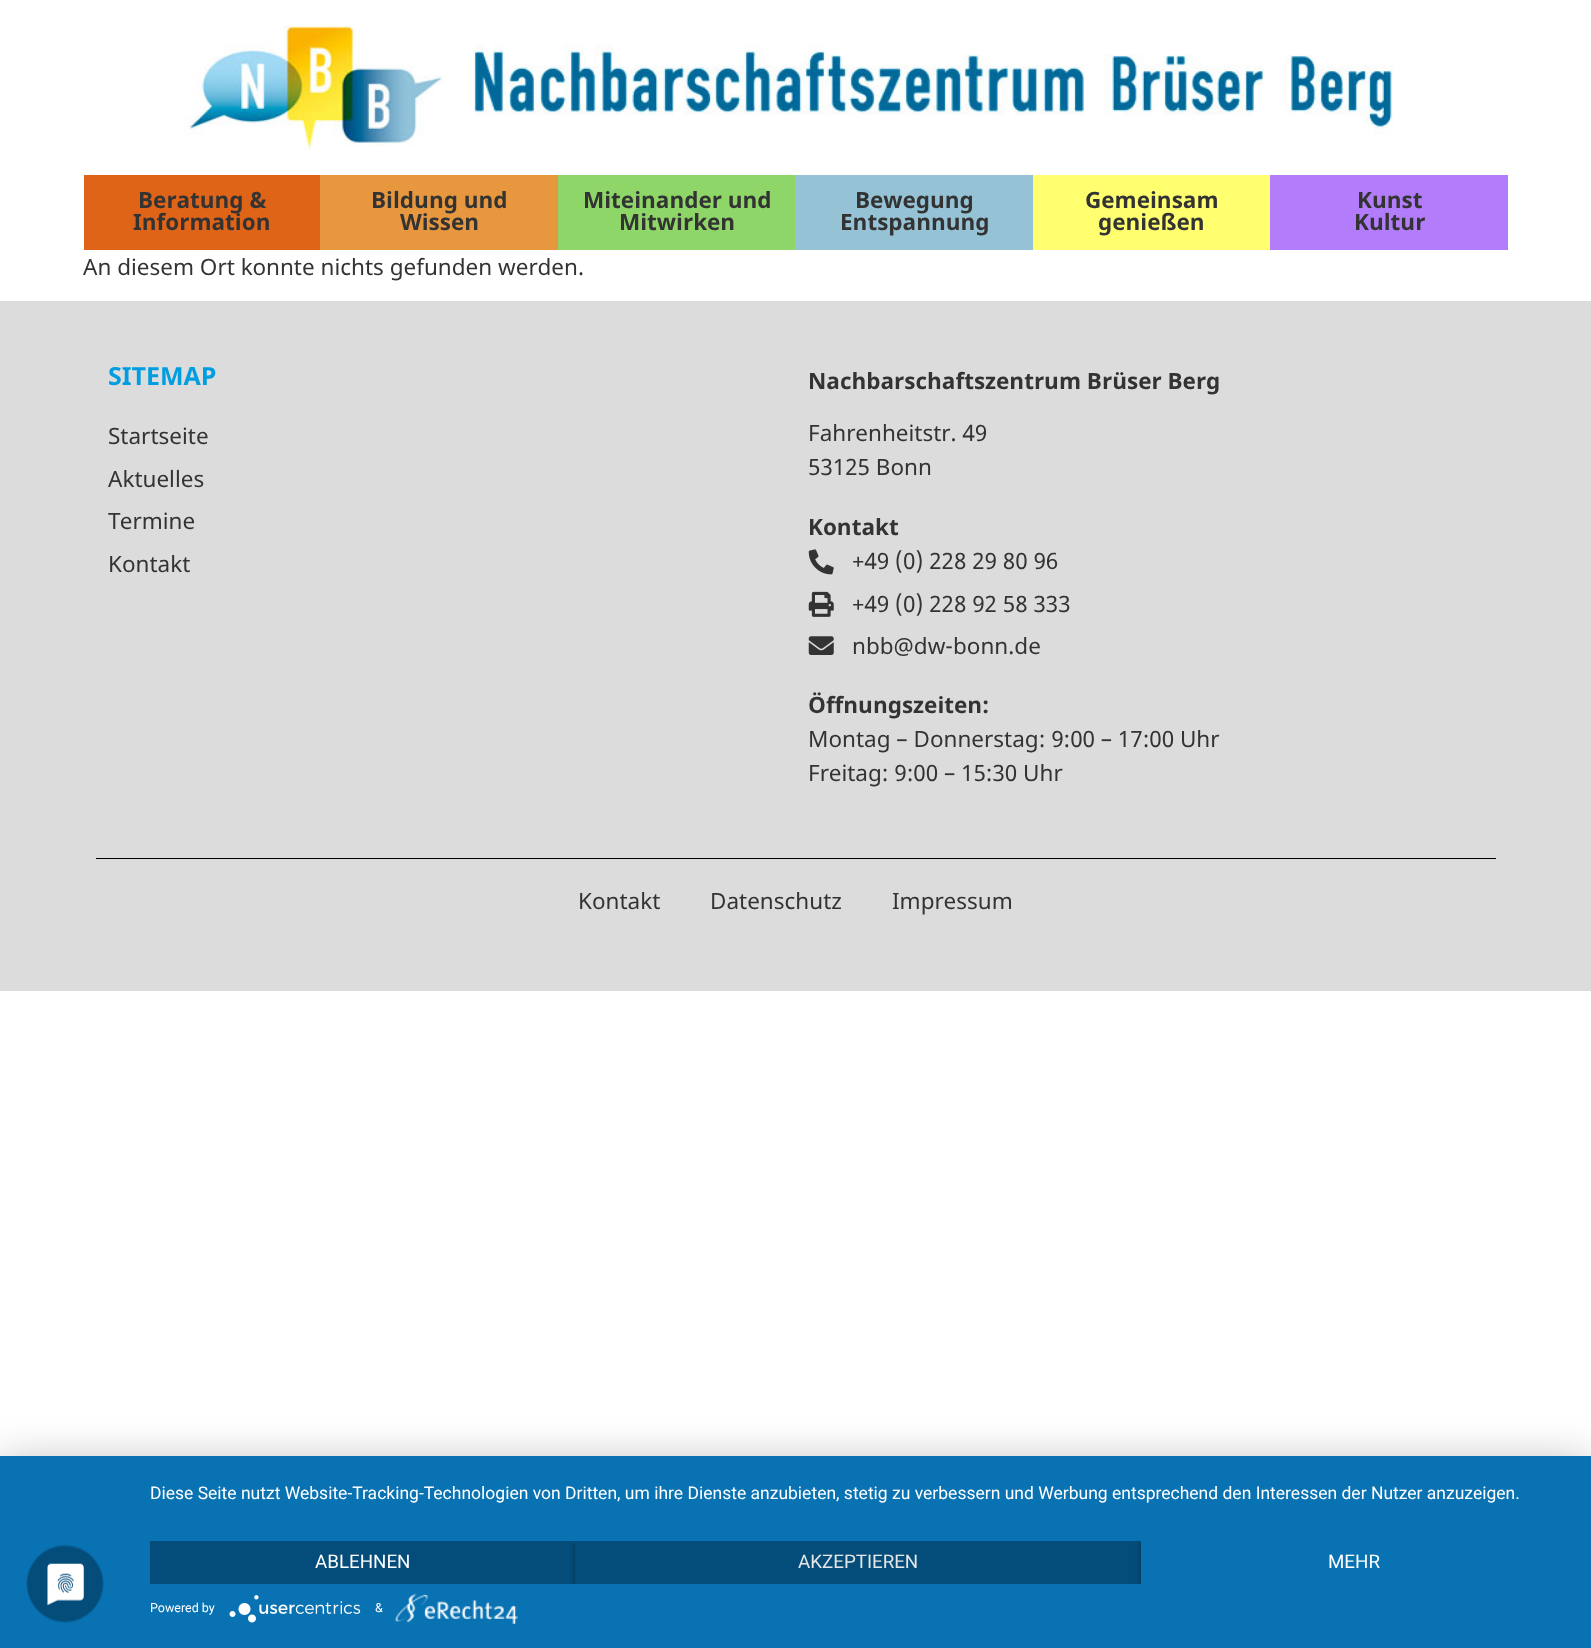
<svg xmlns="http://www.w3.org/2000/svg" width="1591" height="1648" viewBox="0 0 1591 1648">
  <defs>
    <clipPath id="clip1"><rect x="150" y="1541" width="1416" height="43"/></clipPath>
  </defs>
  <rect width="100%" height="100%" fill="rgb(255,255,255)"/>
  <image x="184" y="25" width="1210" height="125" href="pic1.png"/>
  <rect x="84" y="175" width="236" height="75" fill="rgb(224,100,23)"/>
  <g font-family="Noto Sans" font-size="22.5" font-weight="bold" fill="rgb(51,51,51)">
    <text x="138" y="208">Beratung &amp;</text>
    <text x="133" y="230">Information</text>
  </g>
  <rect x="320" y="175" width="238" height="75" fill="rgb(231,152,62)"/>
  <g font-family="Noto Sans" font-size="22.5" font-weight="bold" fill="rgb(51,51,51)">
    <text x="371" y="208">Bildung und</text>
    <text x="400" y="230">Wissen</text>
  </g>
  <rect x="558" y="175" width="237" height="75" fill="rgb(142,214,104)"/>
  <g font-family="Noto Sans" font-size="22.5" font-weight="bold" fill="rgb(51,51,51)">
    <text x="583" y="208">Miteinander und</text>
    <text x="619" y="230">Mitwirken</text>
  </g>
  <rect x="795" y="175" width="238" height="75" fill="rgb(149,195,213)"/>
  <g font-family="Noto Sans" font-size="22.5" font-weight="bold" fill="rgb(51,51,51)">
    <text x="855" y="208">Bewegung</text>
    <text x="840" y="230">Entspannung</text>
  </g>
  <rect x="1033" y="175" width="237" height="75" fill="rgb(255,255,112)"/>
  <g font-family="Noto Sans" font-size="22.5" font-weight="bold" fill="rgb(51,51,51)">
    <text x="1085" y="208">Gemeinsam</text>
    <text x="1098" y="230">genießen</text>
  </g>
  <rect x="1270" y="175" width="238" height="75" fill="rgb(178,124,251)"/>
  <g font-family="Noto Sans" font-size="22.5" font-weight="bold" fill="rgb(51,51,51)">
    <text x="1357" y="208">Kunst</text>
    <text x="1354" y="230">Kultur</text>
  </g>
  <text x="83" y="275" font-family="Noto Sans" font-size="22.5" fill="rgb(51,51,51)">An diesem Ort konnte nichts gefunden werden.</text>
  <rect x="0" y="301" width="1591" height="690" fill="rgb(220,220,220)"/>
  <rect x="96" y="858" width="1400" height="1" fill="rgb(0,0,0)"/>
  <text x="108" y="385" font-family="Noto Sans" font-size="25" font-weight="bold" fill="rgb(0,158,224)">SITEMAP</text>
  <g font-family="Noto Sans" font-size="22.5" fill="rgb(51,51,51)">
    <text>
      <tspan x="108" y="444">Startseite</tspan>
      <tspan x="108" y="487">Aktuelles</tspan>
      <tspan x="108" y="529">Termine</tspan>
      <tspan x="108" y="572">Kontakt</tspan>
    </text>
  </g>
  <text x="808" y="389" font-family="Noto Sans" font-size="22.5" font-weight="bold" fill="rgb(51,51,51)">Nachbarschaftszentrum Brüser Berg</text>
  <g font-family="Noto Sans" font-size="22.5" fill="rgb(51,51,51)">
    <text>
      <tspan x="808" y="441">Fahrenheitstr. 49</tspan>
      <tspan x="808" y="475">53125 Bonn</tspan>
    </text>
  </g>
  <text x="808" y="535" font-family="Noto Sans" font-size="22.5" font-weight="bold" fill="rgb(51,51,51)">Kontakt</text>
  <image x="808" y="549" width="26" height="26" href="pic2.png"/>
  <text x="852" y="569" font-family="Noto Sans" font-size="22.5" fill="rgb(51,51,51)">+49 (0) 228 29 80 96</text>
  <image x="808" y="591" width="26" height="26" href="pic3.png"/>
  <text x="852" y="612" font-family="Noto Sans" font-size="22.5" fill="rgb(51,51,51)">+49 (0) 228 92 58 333</text>
  <image x="808" y="636" width="26" height="19" href="pic4.png"/>
  <text x="852" y="654" font-family="Noto Sans" font-size="22.5" fill="rgb(51,51,51)">nbb@dw-bonn.de</text>
  <text x="808" y="713" font-family="Noto Sans" font-size="22.5" font-weight="bold" fill="rgb(51,51,51)">Öffnungszeiten:</text>
  <g font-family="Noto Sans" font-size="22.5" fill="rgb(51,51,51)">
    <text>
      <tspan x="808" y="747">Montag – Donnerstag: 9:00 – 17:00 Uhr</tspan>
      <tspan x="808" y="781">Freitag: 9:00 – 15:30 Uhr</tspan>
    </text>
    <text x="578" y="909">Kontakt</text>
    <text x="710" y="909">Datenschutz</text>
    <text x="892" y="909">Impressum</text>
  </g>
  <rect x="0" y="1464" width="1591" height="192" fill="rgba(0,0,0,0.3)" filter="blur(22.5px)"/>
  <rect x="0" y="1456" width="1591" height="192" fill="rgb(9,114,179)"/>
  <image x="26" y="1544" width="78" height="79" href="pic5.png"/>
  <text x="150" y="1499" font-family="Roboto" font-size="17.5" fill="rgb(255,255,255)">Diese Seite nutzt Website-Tracking-Technologien von Dritten, um ihre Dienste anzubieten, stetig zu verbessern und Werbung entsprechend den Interessen der Nutzer anzuzeigen.</text>
  <rect x="150" y="1541" width="425" height="43" fill="rgb(4,77,122)"/>
  <text x="315" y="1568" font-family="Roboto" font-size="18.75" fill="rgb(255,255,255)">ABLEHNEN</text>
  <g clip-path="url(#clip1)">
    <rect x="575" y="1543" width="566" height="42" fill="rgba(0,0,0,0.4)" filter="blur(2.5px)"/>
  </g>
  <rect x="575" y="1541" width="566" height="43" fill="rgb(4,77,122)"/>
  <text x="798" y="1568" font-family="Roboto" font-size="18.75" fill="rgb(230,230,230)">AKZEPTIEREN</text>
  <g clip-path="url(#clip1)">
    <rect x="1141" y="1543" width="425" height="42" fill="rgba(0,0,0,0.4)" filter="blur(2.5px)"/>
  </g>
  <rect x="1141" y="1541" width="425" height="43" fill="rgb(9,114,179)"/>
  <text x="1328" y="1568" font-family="Roboto" font-size="18.75" fill="rgb(255,255,255)">MEHR</text>
  <text x="150" y="1612" font-family="Roboto" font-size="12.5" fill="rgb(255,255,255)">Powered by</text>
  <image x="229" y="1595" width="132" height="28" href="pic6.png"/>
  <text x="375" y="1612" font-family="Roboto" font-size="12.5" fill="rgb(255,255,255)">&amp;</text>
  <image x="395" y="1593" width="123" height="31" href="pic7.png"/>
</svg>
